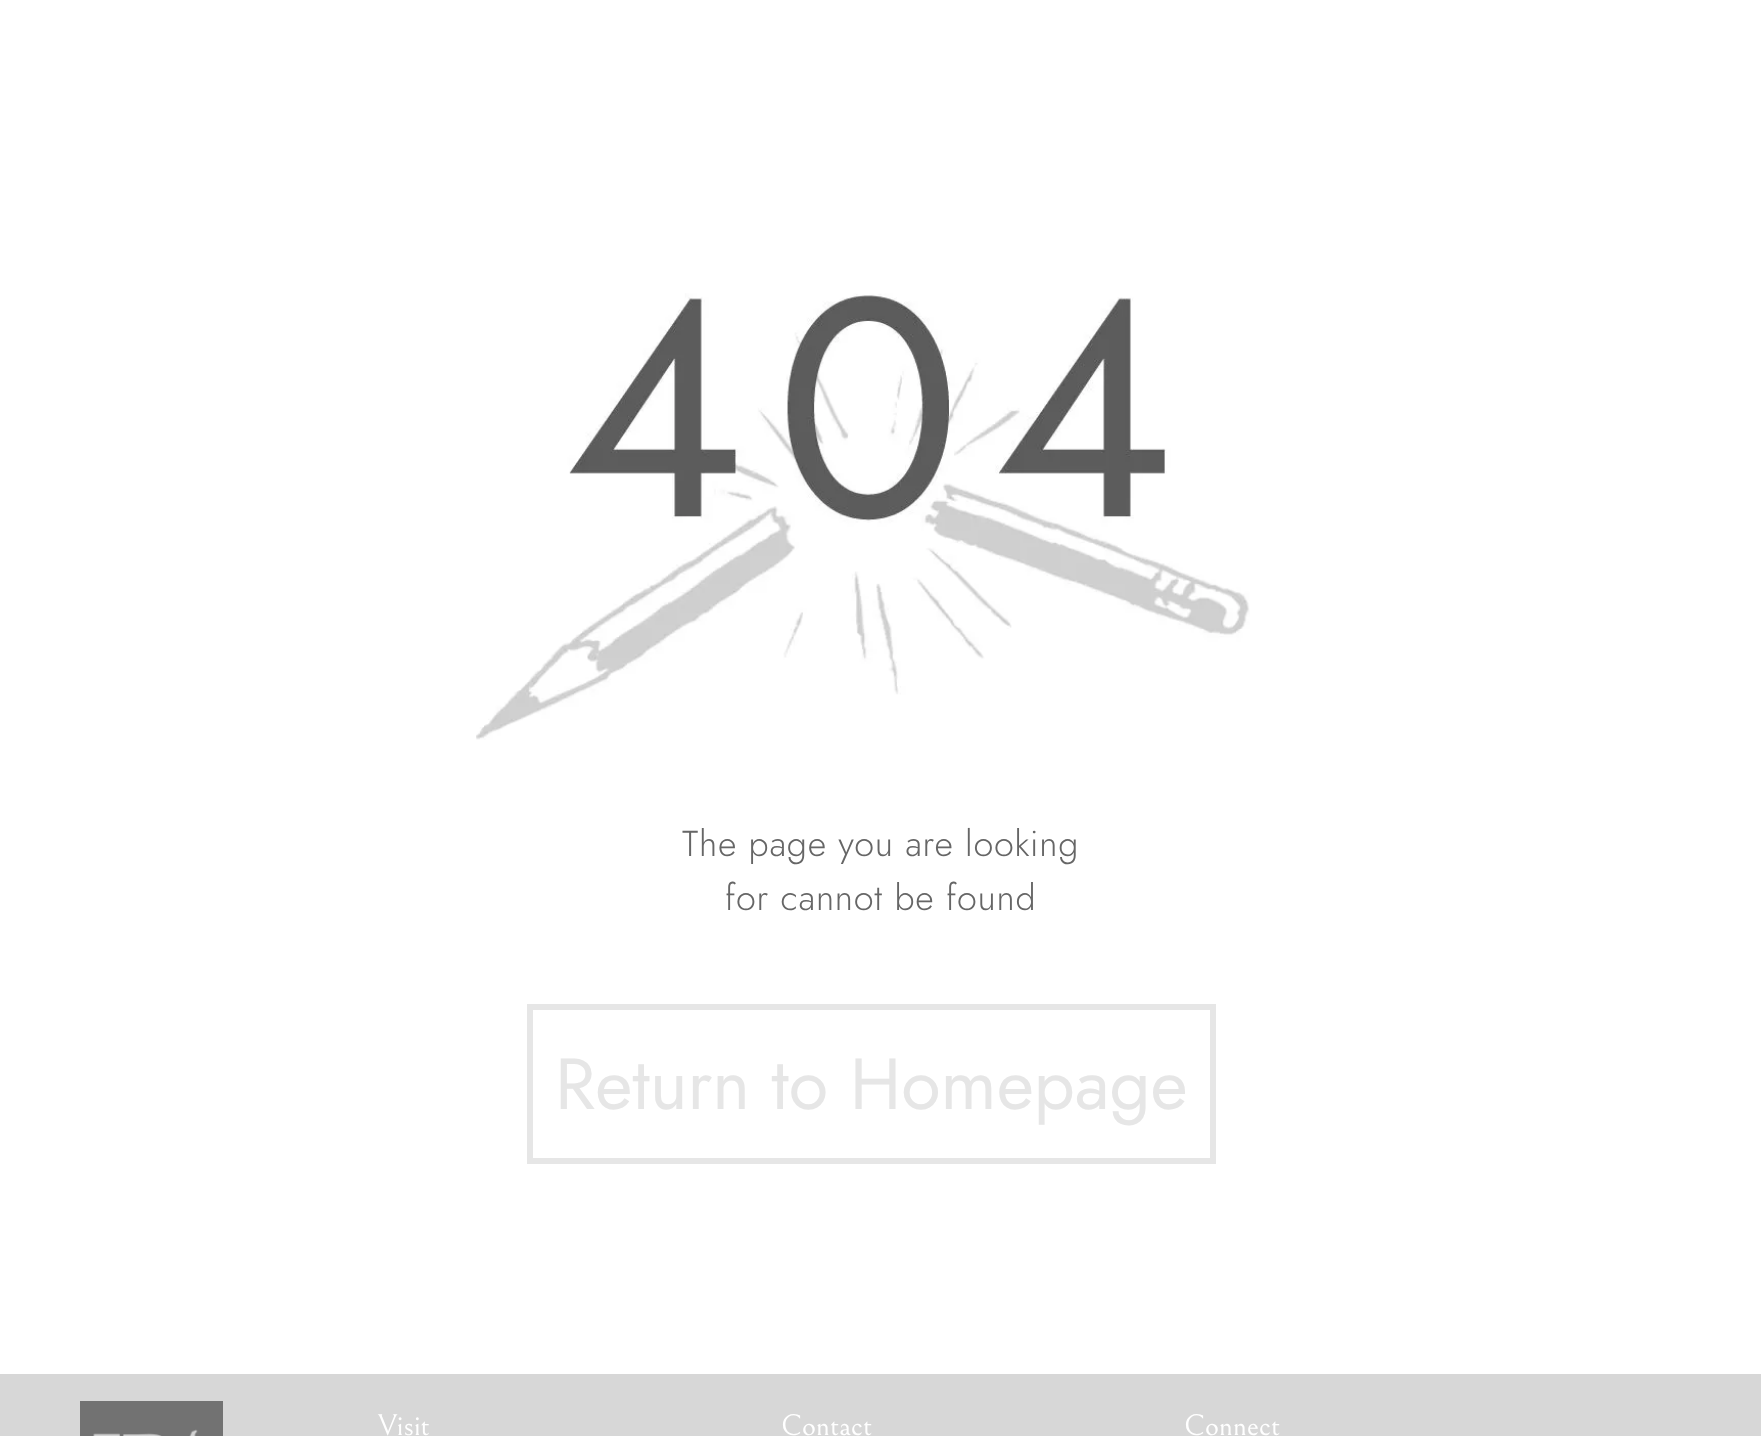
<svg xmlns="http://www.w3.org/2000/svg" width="1761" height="1436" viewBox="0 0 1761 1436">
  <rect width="100%" height="100%" fill="rgb(255,255,255)"/>
  <image x="476" y="293" width="774" height="447" href="pic1.png"/>
  <g font-family="Jost" font-size="36" font-weight="300" letter-spacing="0.75" fill="rgb(102,102,102)">
    <text x="682" y="856">The page you are looking</text>
    <text x="725" y="910">for cannot be found</text>
  </g>
  <rect x="530" y="1007" width="683" height="154" fill="none" stroke="rgb(230,230,230)" stroke-width="6"/>
  <text x="555" y="1109" font-family="Jost" font-size="72" fill="rgb(230,230,230)">Return to Homepage</text>
  <rect x="0" y="1374" width="1761" height="62" fill="rgb(215,215,215)"/>
  <image x="80" y="1401" width="143" height="35" href="pic2.png"/>
  <g font-family="Bellefair" font-size="30" fill="rgb(255,255,255)">
    <text x="378" y="1435">Visit</text>
    <text x="781" y="1435">Contact</text>
    <text x="1184" y="1435">Connect</text>
  </g>
</svg>
